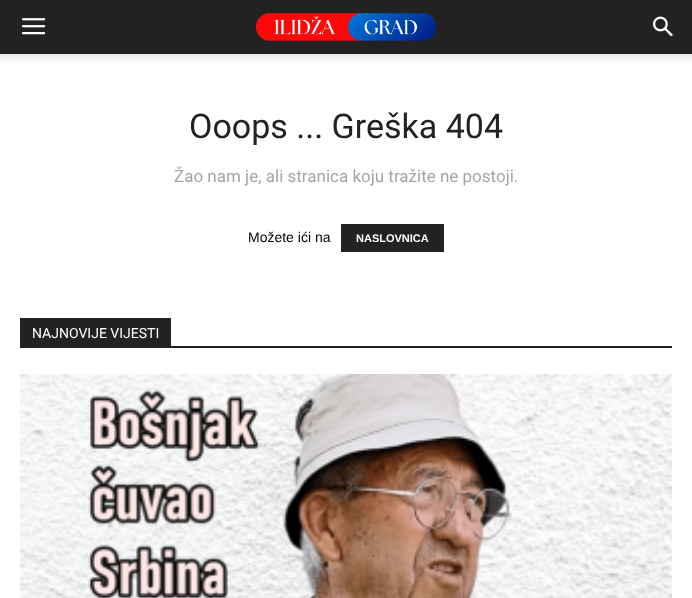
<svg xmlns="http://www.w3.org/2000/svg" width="692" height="598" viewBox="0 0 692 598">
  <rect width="100%" height="100%" fill="rgb(255,255,255)"/>
  <rect x="0" y="0" width="692" height="54" fill="rgb(34,34,34)"/>
  <image x="22" y="18" width="24" height="17" href="pic1.png"/>
  <image x="256" y="13" width="180" height="28" href="pic2.png"/>
  <image x="653" y="16" width="20" height="21" href="pic3.png"/>
  <image x="0" y="54" width="692" height="9" href="pic4.png"/>
  <text x="189" y="138" font-family="Roboto" font-size="34" fill="rgb(34,34,34)">Ooops ... Greška 404</text>
  <text x="174" y="182" font-family="Roboto" font-size="17" fill="rgb(166,166,166)">Žao nam je, ali stranica koju tražite ne postoji.</text>
  <text x="248" y="242" font-family="Liberation Sans" font-size="14" fill="rgb(0,0,0)">Možete ići na</text>
  <rect x="341" y="224" width="103" height="28" fill="rgb(34,34,34)"/>
  <text x="356" y="242" font-family="Liberation Sans" font-size="11" font-weight="bold" fill="rgb(255,255,255)">NASLOVNICA</text>
  <rect x="20" y="346" width="652" height="2" fill="rgb(34,34,34)"/>
  <rect x="20" y="318" width="151" height="28" fill="rgb(34,34,34)"/>
  <text x="32" y="338" font-family="Roboto" font-size="14" fill="rgb(255,255,255)">NAJNOVIJE VIJESTI</text>
  <image x="20" y="374" width="652" height="224" href="pic5.png"/>
</svg>
